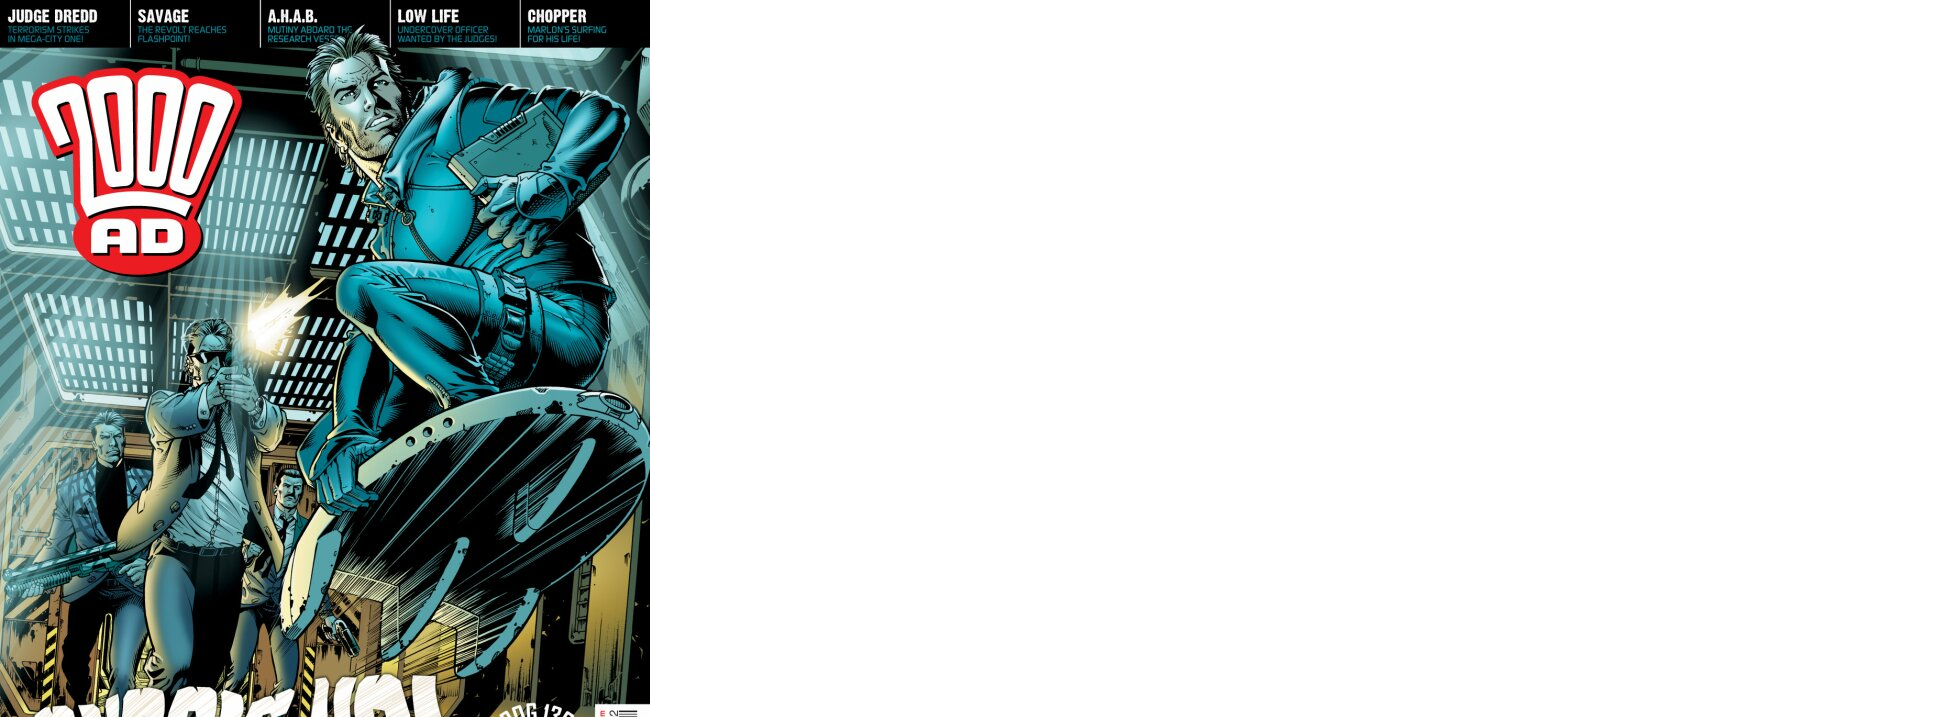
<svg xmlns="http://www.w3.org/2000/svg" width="1934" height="717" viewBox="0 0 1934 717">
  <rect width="100%" height="100%" fill="rgb(255,255,255)"/>
  <image x="0" y="0" width="650" height="717" href="pic1.png"/>
</svg>
